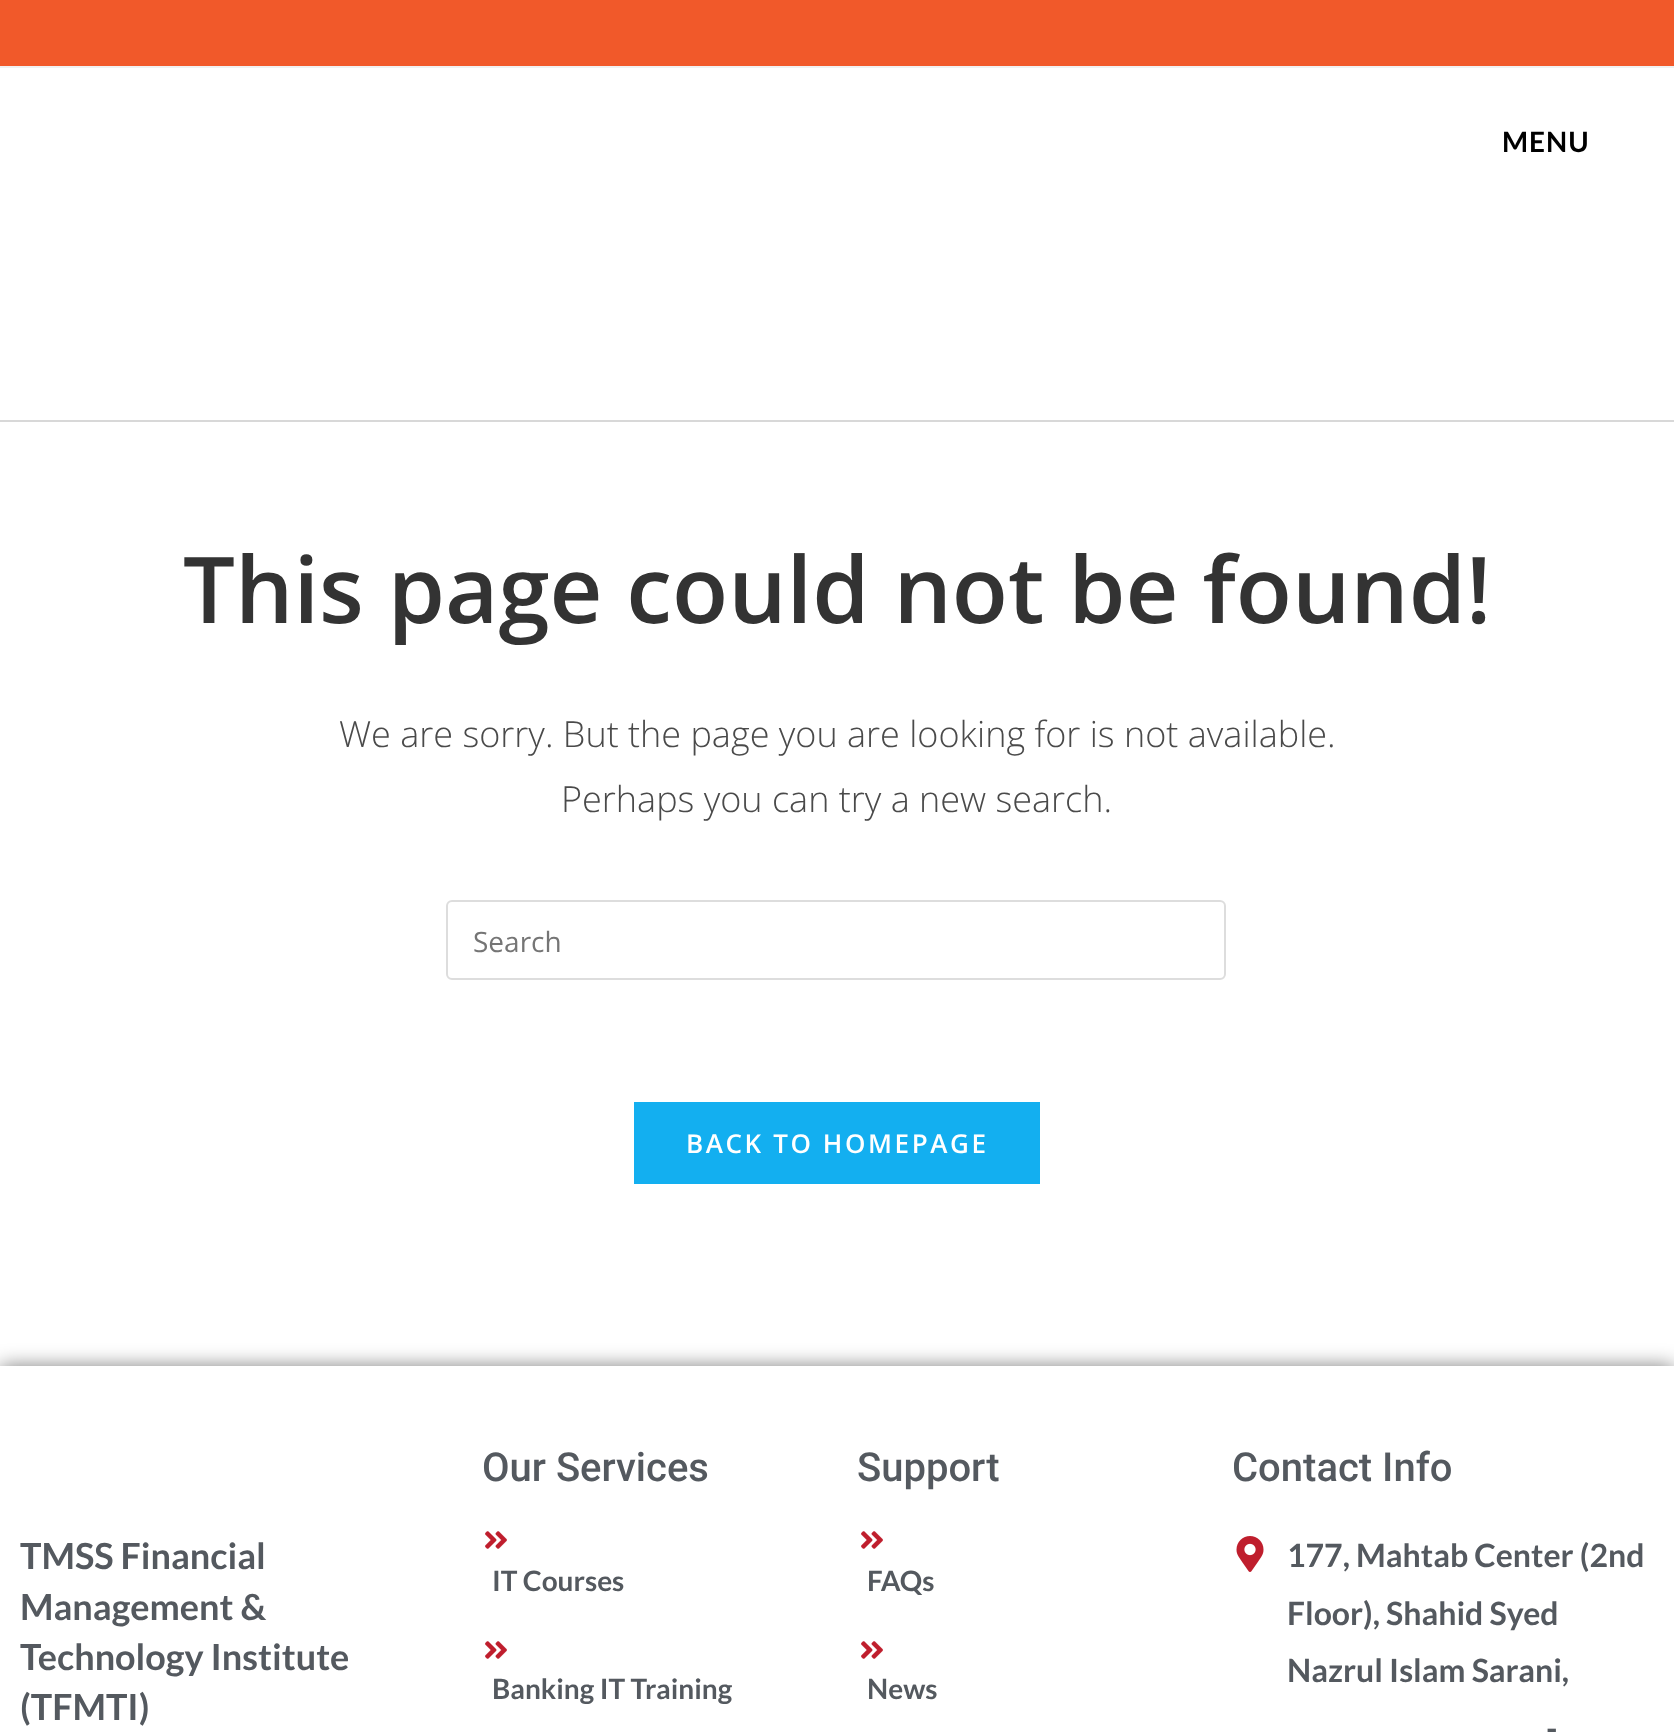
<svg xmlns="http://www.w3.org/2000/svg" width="1674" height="1733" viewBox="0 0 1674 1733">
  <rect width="100%" height="100%" fill="rgb(255,255,255)"/>
  <rect x="0" y="0" width="1674" height="66" fill="rgb(241,89,42)"/>
  <rect x="0" y="66" width="1674" height="2" fill="rgb(241,241,241)"/>
  <rect x="0" y="420" width="1674" height="2" fill="rgb(216,216,216)"/>
  <text x="1502" y="152" font-family="Lato" font-size="28" font-weight="bold" letter-spacing="1" fill="rgb(0,0,0)">MENU</text>
  <text x="183" y="623" font-family="Open Sans" font-size="92" font-weight="600" fill="rgb(51,51,51)">This page could not be found!</text>
  <g font-family="Open Sans" font-size="36" font-weight="300" fill="rgb(74,74,74)">
    <text x="339" y="747">We are sorry. But the page you are looking for is not available.</text>
    <text x="561" y="812">Perhaps you can try a new search.</text>
  </g>
  <rect x="447" y="901" width="778" height="78" rx="5" fill="none" stroke="rgb(221,221,221)" stroke-width="2"/>
  <text x="473" y="952" font-family="Open Sans" font-size="28" fill="rgb(117,117,117)">Search</text>
  <rect x="634" y="1102" width="406" height="82" fill="rgb(19,175,240)"/>
  <text x="686" y="1153" font-family="Open Sans" font-size="26" font-weight="600" letter-spacing="2.6" fill="rgb(255,255,255)">BACK TO HOMEPAGE</text>
  <rect x="0" y="1366" width="1674" height="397" fill="rgba(0,0,0,0.5)" filter="blur(10px)"/>
  <rect x="0" y="1366" width="1674" height="367" fill="rgb(255,255,255)"/>
  <g font-family="Lato" font-size="36" font-weight="bold" fill="rgb(84,89,95)">
    <text>
      <tspan x="20" y="1569">TMSS Financial</tspan>
      <tspan x="20" y="1620">Management &amp;</tspan>
      <tspan x="20" y="1670">Technology Institute</tspan>
      <tspan x="20" y="1720">(TFMTI)</tspan>
    </text>
  </g>
  <text x="482" y="1481" font-family="Roboto" font-size="40" font-weight="500" fill="rgb(84,89,95)">Our Services</text>
  <image x="485" y="1531" width="22" height="18" href="pic1.png"/>
  <text x="492" y="1591" font-family="Lato" font-size="28" font-weight="bold" fill="rgb(84,89,95)">IT Courses</text>
  <image x="485" y="1641" width="22" height="18" href="pic1.png"/>
  <text x="492" y="1699" font-family="Lato" font-size="28" font-weight="bold" fill="rgb(84,89,95)">Banking IT Training</text>
  <text x="857" y="1481" font-family="Roboto" font-size="40" font-weight="500" fill="rgb(84,89,95)">Support</text>
  <image x="861" y="1531" width="22" height="18" href="pic1.png"/>
  <text x="867" y="1591" font-family="Lato" font-size="28" font-weight="bold" fill="rgb(84,89,95)">FAQs</text>
  <image x="861" y="1641" width="22" height="18" href="pic1.png"/>
  <text x="867" y="1699" font-family="Lato" font-size="28" font-weight="bold" fill="rgb(84,89,95)">News</text>
  <text x="1232" y="1481" font-family="Roboto" font-size="40" font-weight="500" fill="rgb(84,89,95)">Contact Info</text>
  <image x="1236" y="1536" width="28" height="36" href="pic2.png"/>
  <g font-family="Lato" font-size="32" font-weight="bold" fill="rgb(84,89,95)">
    <text>
      <tspan x="1287" y="1567">177, Mahtab Center (2nd</tspan>
      <tspan x="1287" y="1625">Floor), Shahid Syed</tspan>
      <tspan x="1287" y="1682">Nazrul Islam Sarani,</tspan>
    </text>
    <text x="1546" y="1740">-</text>
  </g>
</svg>
